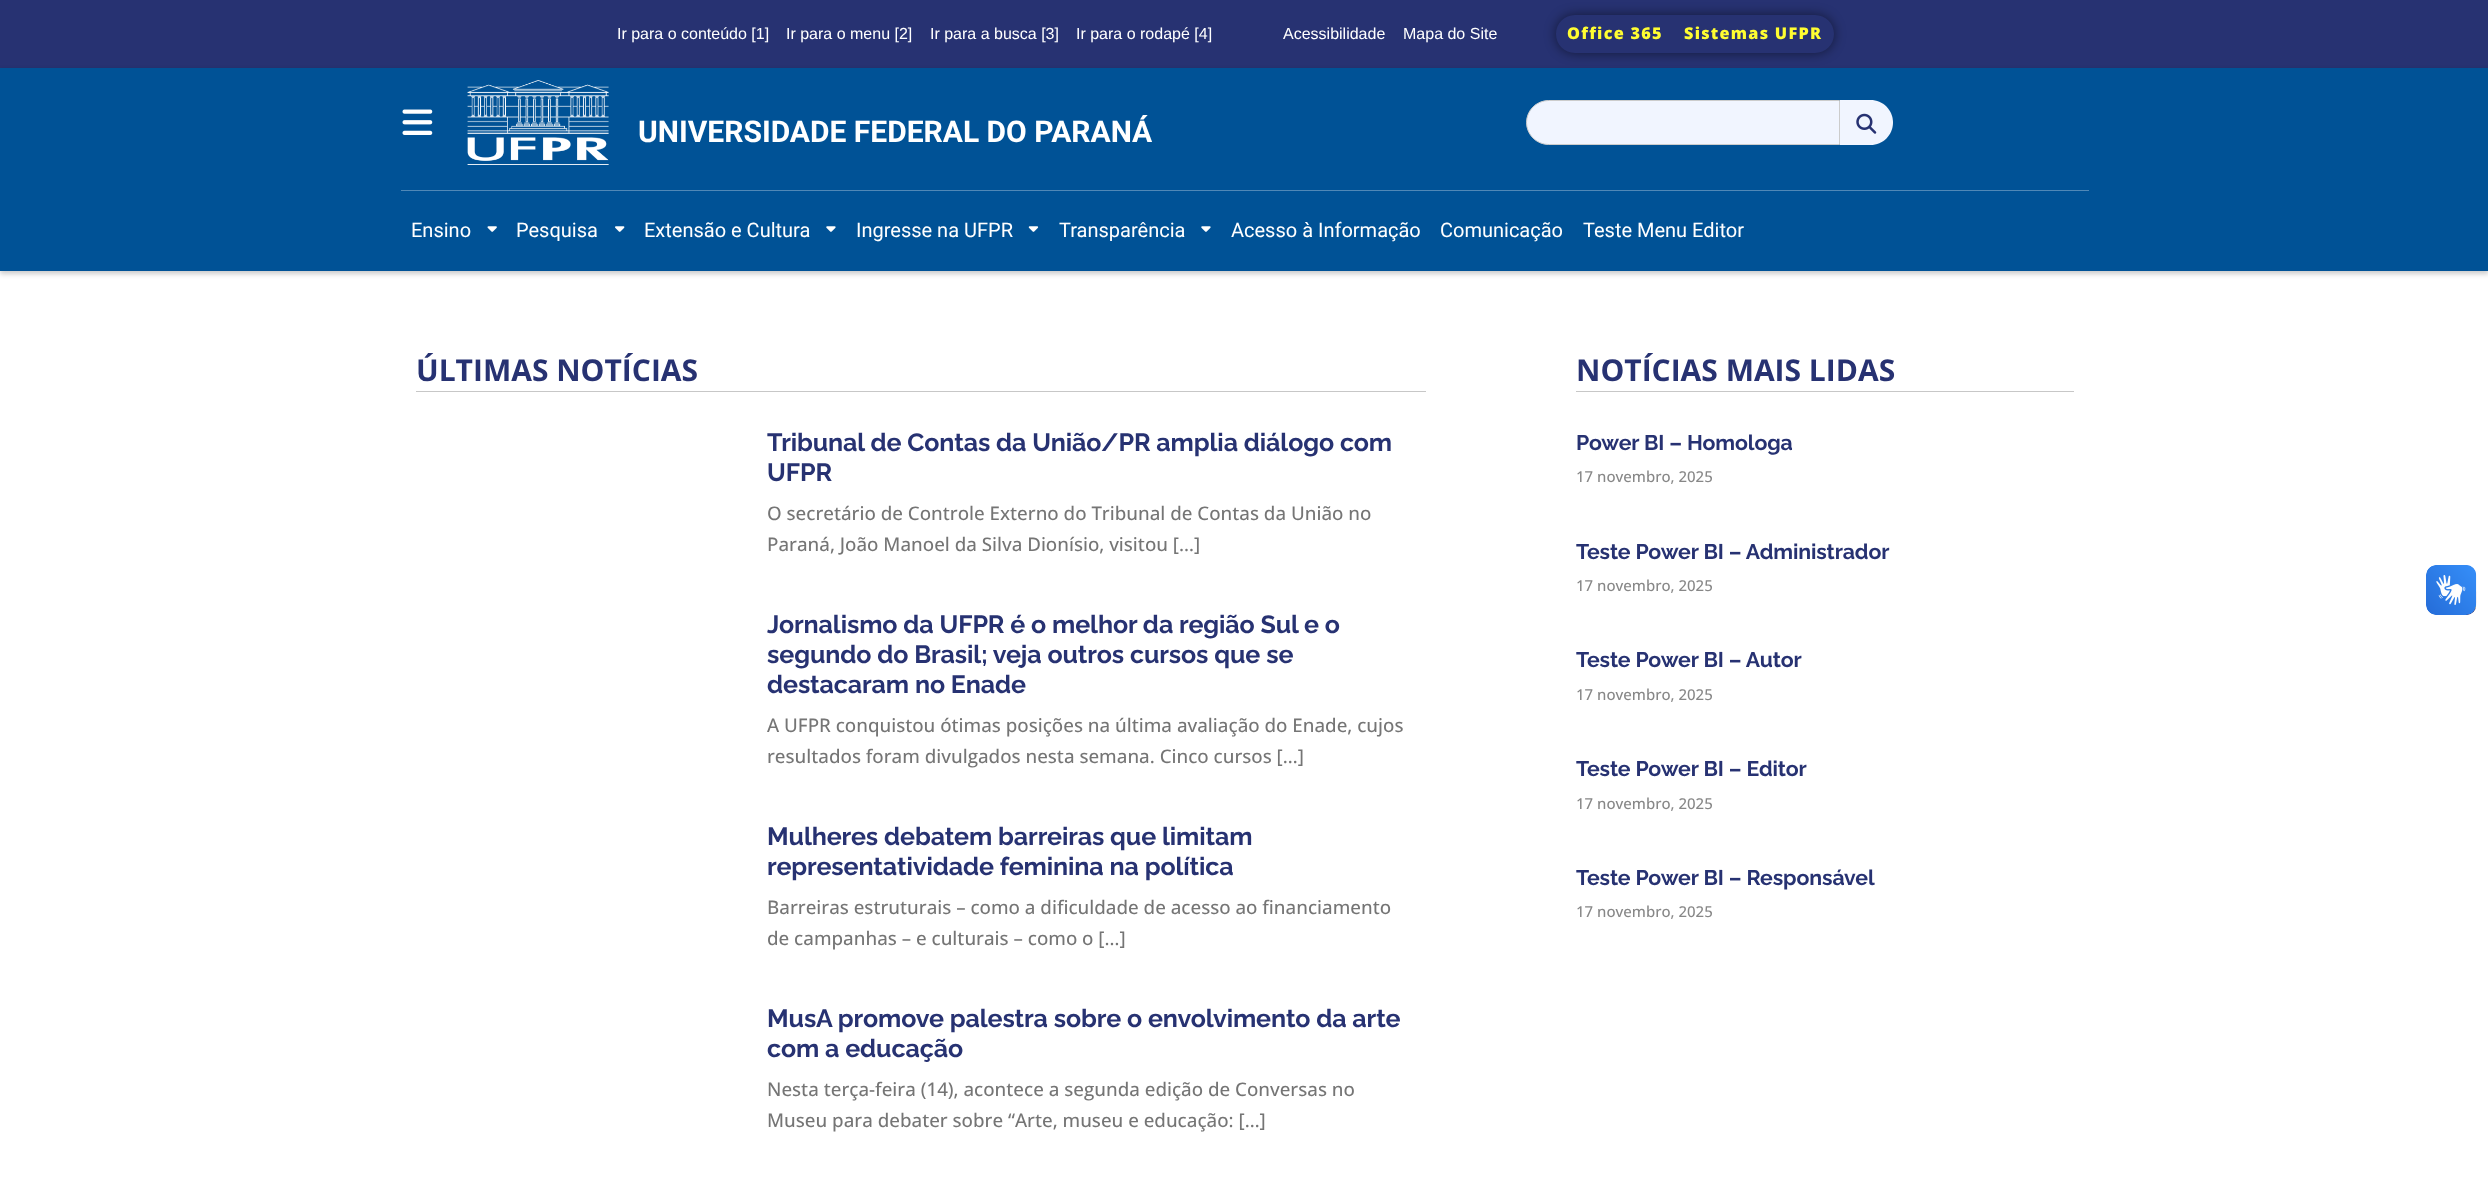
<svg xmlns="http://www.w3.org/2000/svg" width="2488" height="1179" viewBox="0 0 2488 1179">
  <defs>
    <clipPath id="clip1"><path d="M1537 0H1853V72H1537ZM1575 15H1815C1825.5 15 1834 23.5 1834 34C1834 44.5 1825.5 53 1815 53H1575C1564.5 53 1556 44.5 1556 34C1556 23.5 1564.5 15 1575 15Z" clip-rule="evenodd"/></clipPath>
  </defs>
  <rect width="100%" height="100%" fill="rgb(255,255,255)"/>
  <rect x="0" y="0" width="2488" height="68" fill="rgb(39,50,114)"/>
  <g font-family="Liberation Sans" font-size="16" fill="rgb(255,255,255)">
    <text x="617" y="39">Ir para o conteúdo [1]</text>
    <text x="786" y="39">Ir para o menu [2]</text>
    <text x="930" y="39">Ir para a busca [3]</text>
    <text x="1076" y="39">Ir para o rodapé [4]</text>
    <text x="1283" y="39">Acessibilidade</text>
    <text x="1403" y="39">Mapa do Site</text>
  </g>
  <g clip-path="url(#clip1)">
    <rect x="1556" y="15" width="278" height="38" rx="19" fill="rgba(0,0,0,0.5)" filter="blur(6px)"/>
  </g>
  <g font-family="Open Sans" font-size="16.25" font-weight="800" letter-spacing="1.25" fill="rgb(255,253,49)">
    <text x="1567" y="39">Office 365</text>
    <text x="1684" y="39">Sistemas UFPR</text>
  </g>
  <rect x="0" y="70" width="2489" height="204" fill="rgba(0,0,0,0.2)" filter="blur(2.5px)"/>
  <rect x="0" y="68" width="2488" height="203" fill="rgb(0,82,150)"/>
  <image x="402" y="109" width="31" height="26" href="pic1.png"/>
  <image x="467" y="80" width="142" height="85" href="pic2.png"/>
  <text x="638" y="142" font-family="Roboto" font-size="30" font-weight="bold" fill="rgb(255,255,255)">UNIVERSIDADE FEDERAL DO PARANÁ</text>
  <path d="M1548.5 100.5H1839.5V144.5H1548.5C1536.5 144.5 1526.5 134.5 1526.5 122.5C1526.5 110.5 1536.5 100.5 1548.5 100.5Z" fill="rgb(241,245,255)" stroke="rgb(204,204,204)"/>
  <path d="M1840 100H1870.5C1883 100 1893 110 1893 122.5C1893 135 1883 145 1870.5 145H1840Z" fill="rgb(241,245,255)"/>
  <image x="1856" y="113" width="21" height="21" href="pic3.png"/>
  <rect x="401" y="190" width="1688" height="1" fill="rgb(80,136,183)"/>
  <text x="411" y="237" font-family="Roboto" font-size="20" fill="rgb(255,255,255)">Ensino</text>
  <image x="487" y="226" width="10" height="6" href="pic4.png"/>
  <text x="516" y="237" font-family="Roboto" font-size="20" fill="rgb(255,255,255)">Pesquisa</text>
  <image x="615" y="226" width="10" height="6" href="pic5.png"/>
  <text x="644" y="237" font-family="Roboto" font-size="20" fill="rgb(255,255,255)">Extensão e Cultura</text>
  <image x="826" y="226" width="10" height="6" href="pic6.png"/>
  <text x="856" y="237" font-family="Roboto" font-size="20" fill="rgb(255,255,255)">Ingresse na UFPR</text>
  <image x="1028" y="226" width="11" height="6" href="pic7.png"/>
  <text x="1059" y="237" font-family="Roboto" font-size="20" fill="rgb(255,255,255)">Transparência</text>
  <image x="1201" y="226" width="10" height="6" href="pic6.png"/>
  <g font-family="Roboto" font-size="20" fill="rgb(255,255,255)">
    <text x="1231" y="237">Acesso à Informação</text>
    <text x="1440" y="237">Comunicação</text>
    <text x="1583" y="237">Teste Menu Editor</text>
  </g>
  <rect x="416" y="391" width="1010" height="1" fill="rgb(199,199,199)"/>
  <text x="416" y="381" font-family="Open Sans" font-size="30" font-weight="bold" fill="rgb(39,50,114)">ÚLTIMAS NOTÍCIAS</text>
  <g font-family="Raleway" font-size="25" font-weight="bold" letter-spacing="-0.1" fill="rgb(39,50,114)">
    <text>
      <tspan x="767" y="451">Tribunal de Contas da União/PR amplia diálogo com</tspan>
      <tspan x="767" y="481">UFPR</tspan>
    </text>
  </g>
  <g font-family="Open Sans" font-size="18.75" font-weight="500" fill="rgb(117,117,117)">
    <text>
      <tspan x="767" y="520">O secretário de Controle Externo do Tribunal de Contas da União no</tspan>
      <tspan x="767" y="551">Paraná, João Manoel da Silva Dionísio, visitou […]</tspan>
    </text>
  </g>
  <g font-family="Raleway" font-size="25" font-weight="bold" letter-spacing="-0.1" fill="rgb(39,50,114)">
    <text>
      <tspan x="767" y="633">Jornalismo da UFPR é o melhor da região Sul e o</tspan>
      <tspan x="767" y="663">segundo do Brasil; veja outros cursos que se</tspan>
      <tspan x="767" y="693">destacaram no Enade</tspan>
    </text>
  </g>
  <g font-family="Open Sans" font-size="18.75" font-weight="500" fill="rgb(117,117,117)">
    <text>
      <tspan x="767" y="732">A UFPR conquistou ótimas posições na última avaliação do Enade, cujos</tspan>
      <tspan x="767" y="763">resultados foram divulgados nesta semana. Cinco cursos […]</tspan>
    </text>
  </g>
  <g font-family="Raleway" font-size="25" font-weight="bold" letter-spacing="-0.1" fill="rgb(39,50,114)">
    <text>
      <tspan x="767" y="845">Mulheres debatem barreiras que limitam</tspan>
      <tspan x="767" y="875">representatividade feminina na política</tspan>
    </text>
  </g>
  <g font-family="Open Sans" font-size="18.75" font-weight="500" fill="rgb(117,117,117)">
    <text>
      <tspan x="767" y="914">Barreiras estruturais – como a dificuldade de acesso ao financiamento</tspan>
      <tspan x="767" y="945">de campanhas – e culturais – como o […]</tspan>
    </text>
  </g>
  <g font-family="Raleway" font-size="25" font-weight="bold" letter-spacing="-0.1" fill="rgb(39,50,114)">
    <text>
      <tspan x="767" y="1027">MusA promove palestra sobre o envolvimento da arte</tspan>
      <tspan x="767" y="1057">com a educação</tspan>
    </text>
  </g>
  <g font-family="Open Sans" font-size="18.75" font-weight="500" fill="rgb(117,117,117)">
    <text>
      <tspan x="767" y="1096">Nesta terça-feira (14), acontece a segunda edição de Conversas no</tspan>
      <tspan x="767" y="1127">Museu para debater sobre “Arte, museu e educação: […]</tspan>
    </text>
  </g>
  <rect x="1576" y="391" width="498" height="1" fill="rgb(199,199,199)"/>
  <text x="1576" y="381" font-family="Open Sans" font-size="30" font-weight="bold" fill="rgb(39,50,114)">NOTÍCIAS MAIS LIDAS</text>
  <text x="1576" y="450" font-family="Raleway" font-size="21.25" font-weight="bold" letter-spacing="-0.1" fill="rgb(39,50,114)">Power BI – Homologa</text>
  <text x="1576" y="482" font-family="Open Sans" font-size="15" font-weight="500" fill="rgb(135,135,135)">17 novembro, 2025</text>
  <text x="1576" y="559" font-family="Raleway" font-size="21.25" font-weight="bold" letter-spacing="-0.1" fill="rgb(39,50,114)">Teste Power BI – Administrador</text>
  <text x="1576" y="591" font-family="Open Sans" font-size="15" font-weight="500" fill="rgb(135,135,135)">17 novembro, 2025</text>
  <text x="1576" y="667" font-family="Raleway" font-size="21.25" font-weight="bold" letter-spacing="-0.1" fill="rgb(39,50,114)">Teste Power BI – Autor</text>
  <text x="1576" y="700" font-family="Open Sans" font-size="15" font-weight="500" fill="rgb(135,135,135)">17 novembro, 2025</text>
  <text x="1576" y="776" font-family="Raleway" font-size="21.25" font-weight="bold" letter-spacing="-0.1" fill="rgb(39,50,114)">Teste Power BI – Editor</text>
  <text x="1576" y="809" font-family="Open Sans" font-size="15" font-weight="500" fill="rgb(135,135,135)">17 novembro, 2025</text>
  <text x="1576" y="885" font-family="Raleway" font-size="21.25" font-weight="bold" letter-spacing="-0.1" fill="rgb(39,50,114)">Teste Power BI – Responsável</text>
  <text x="1576" y="917" font-family="Open Sans" font-size="15" font-weight="500" fill="rgb(135,135,135)">17 novembro, 2025</text>
  <image x="2426" y="565" width="51" height="50" href="pic8.png"/>
  <image x="2426" y="565" width="50" height="50" href="pic9.png"/>
</svg>
